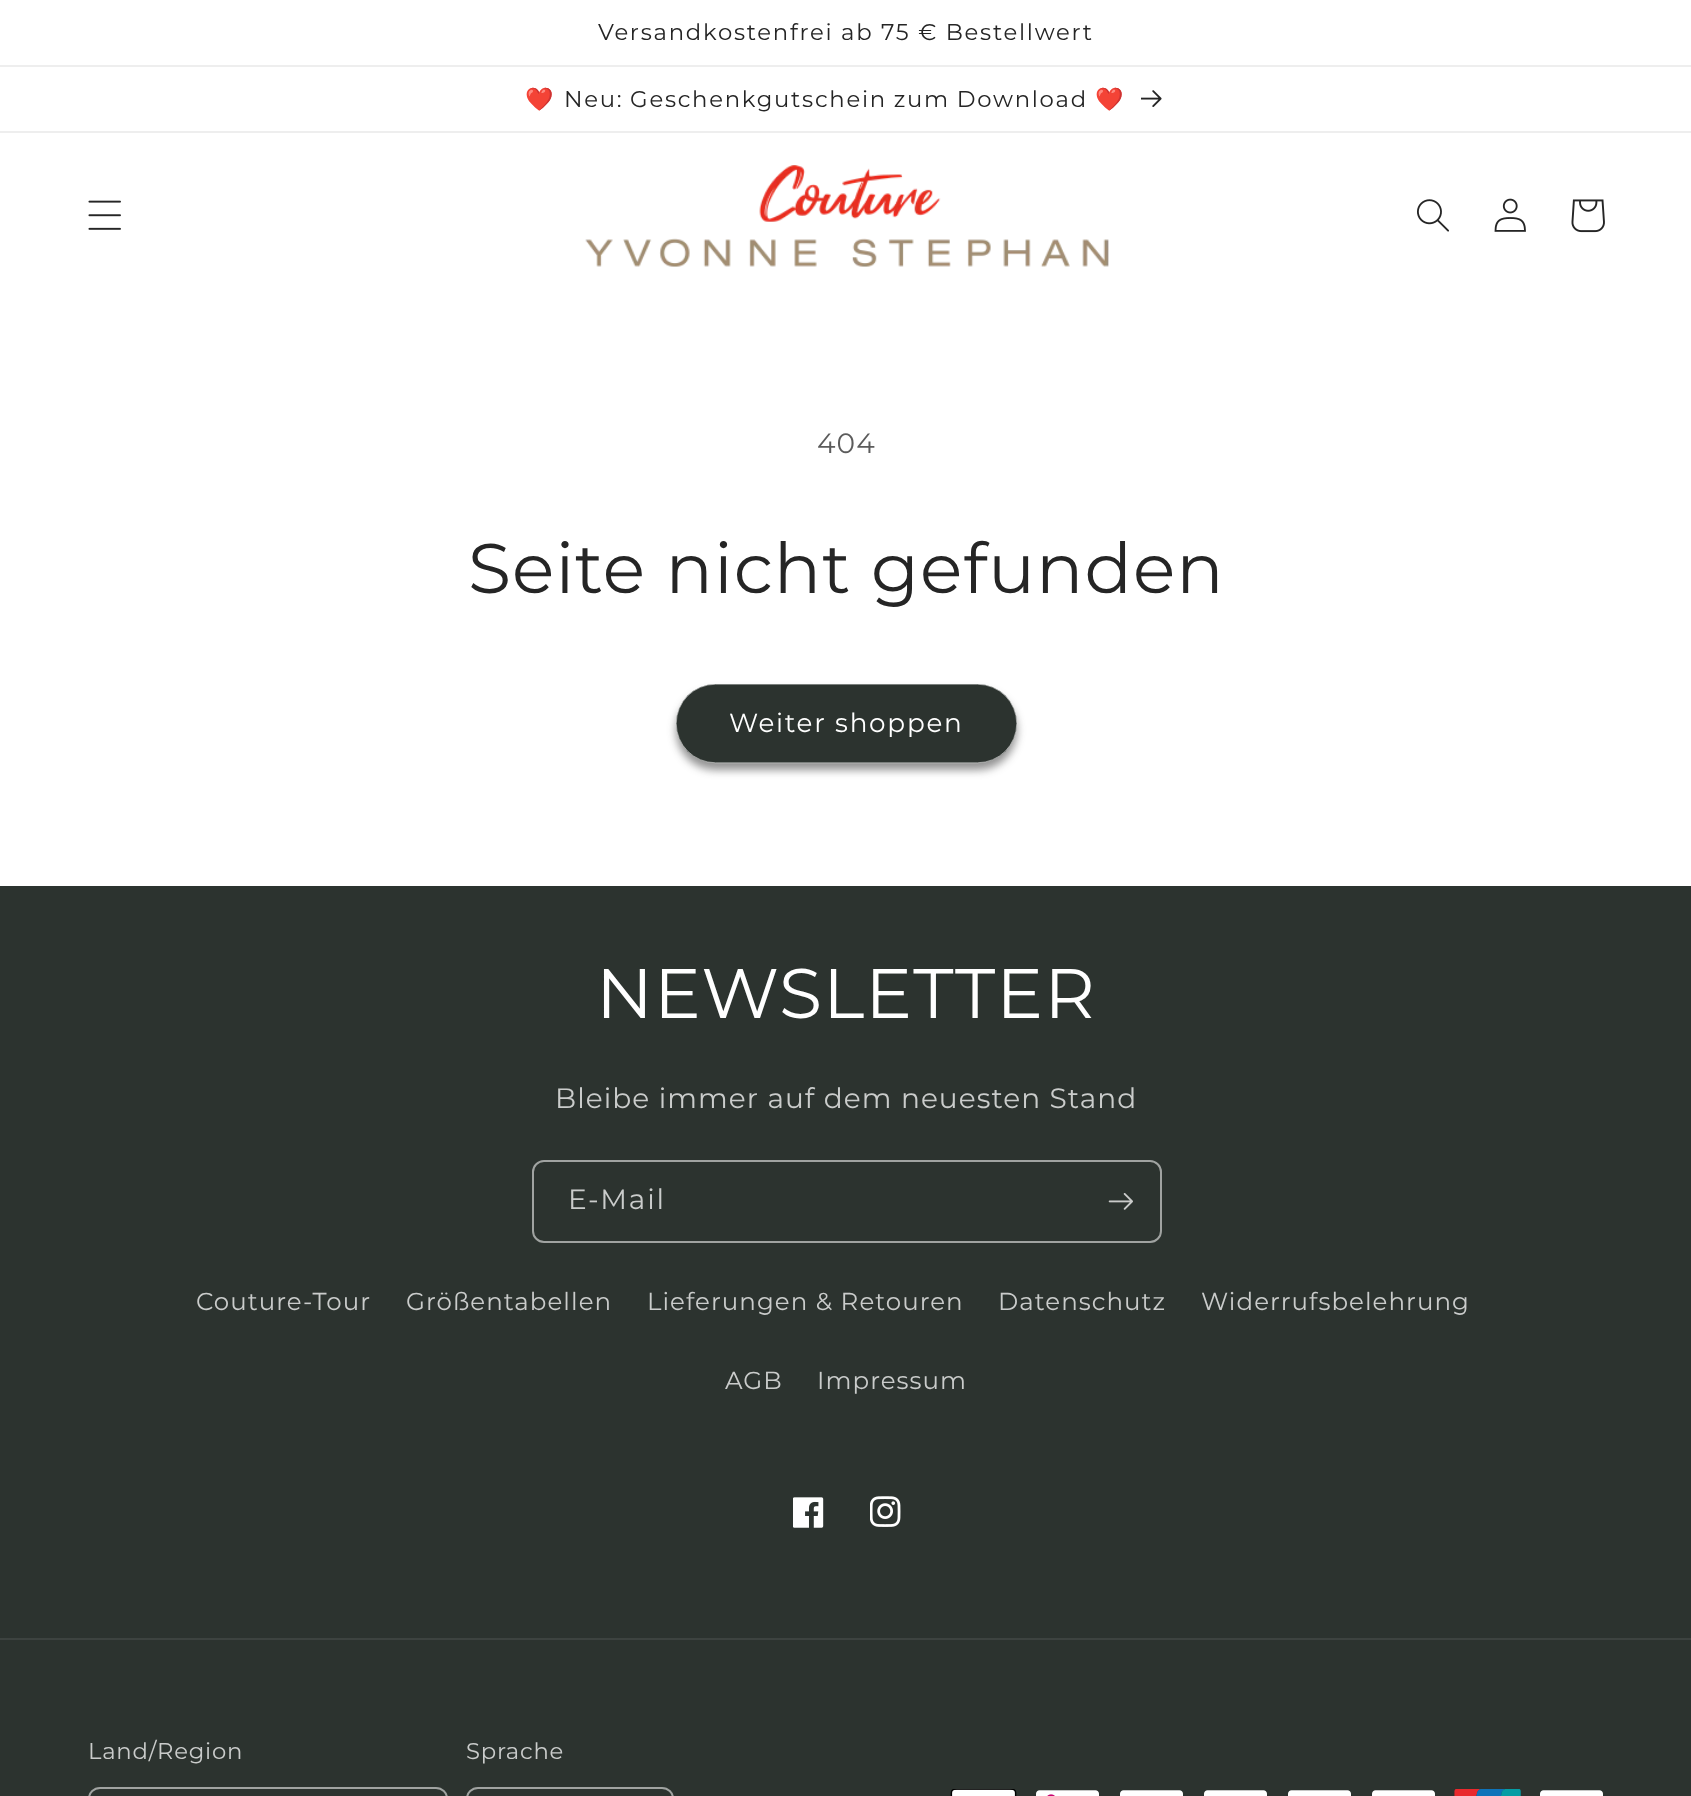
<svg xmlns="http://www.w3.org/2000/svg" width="1691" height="1796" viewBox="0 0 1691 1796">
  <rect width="100%" height="100%" fill="rgb(255,255,255)"/>
  <rect x="0" y="65" width="1691" height="2" fill="rgb(238,238,238)"/>
  <text x="598" y="40" font-family="Montserrat" font-size="22.75" letter-spacing="1.75" fill="rgb(37,37,37)">Versandkostenfrei ab 75 € Bestellwert</text>
  <rect x="0" y="131" width="1691" height="2" fill="rgb(238,238,238)"/>
  <text x="525" y="107" font-family="Noto Color Emoji" font-size="22.75" letter-spacing="1.75" fill="rgb(37,37,37)">❤️</text>
  <text x="564" y="107" word-spacing="-1" font-family="Montserrat" font-size="22.75" letter-spacing="1.75" fill="rgb(37,37,37)">Neu: Geschenkgutschein zum Download</text>
  <text x="1095" y="107" font-family="Noto Color Emoji" font-size="22.75" letter-spacing="1.75" fill="rgb(37,37,37)">❤️</text>
  <image x="1141" y="90" width="21" height="17" href="pic1.png"/>
  <image x="88" y="200" width="33" height="30" href="pic2.png"/>
  <image x="585" y="165" width="524" height="102" href="pic3.png"/>
  <image x="1417" y="199" width="32" height="33" href="pic4.png"/>
  <image x="1494" y="198" width="32" height="34" href="pic5.png"/>
  <image x="1571" y="199" width="34" height="34" href="pic6.png"/>
  <text x="817" y="453" font-family="Montserrat" font-size="28" letter-spacing="1.05" fill="rgb(92,92,92)">404</text>
  <text x="468" y="593" font-family="Montserrat" font-size="70" letter-spacing="1.05" fill="rgb(37,37,37)">Seite nicht gefunden</text>
  <rect x="676" y="691" width="341" height="79" rx="39.5" fill="rgba(37,37,37,0.5)" filter="blur(4.5px)"/>
  <rect x="676" y="684" width="341" height="79" rx="39.5" fill="rgb(44,51,47)"/>
  <rect x="676.25" y="684.25" width="340.5" height="78.5" rx="39.25" fill="none" stroke="rgb(255,255,255)" stroke-width="0.5"/>
  <text x="729" y="732" font-family="Montserrat" font-size="26.25" letter-spacing="1.75" fill="rgb(255,255,255)">Weiter shoppen</text>
  <rect x="0" y="886" width="1691" height="910" fill="rgb(44,51,47)"/>
  <text x="596" y="1018" font-family="Montserrat" font-size="70" letter-spacing="1.05" fill="rgb(255,255,255)">NEWSLETTER</text>
  <text x="555" y="1108" font-family="Montserrat" font-size="28" letter-spacing="1.05" fill="rgb(202,204,203)">Bleibe immer auf dem neuesten Stand</text>
  <rect x="533" y="1161" width="628" height="81" rx="11" fill="none" stroke="rgb(160,163,161)" stroke-width="2"/>
  <text x="568" y="1209" font-family="Montserrat" font-size="28" letter-spacing="1.75" fill="rgb(202,204,203)">E-Mail</text>
  <image x="1108" y="1193" width="25" height="17" href="pic7.png"/>
  <g font-family="Montserrat" font-size="24.5" letter-spacing="1.05" fill="rgb(202,204,203)">
    <text x="196" y="1310">Couture-Tour</text>
    <text x="406" y="1310">Größentabellen</text>
    <text x="647" y="1310">Lieferungen &amp; Retouren</text>
    <text x="998" y="1310">Datenschutz</text>
    <text x="1201" y="1310">Widerrufsbelehrung</text>
    <text x="725" y="1389">AGB</text>
    <text x="817" y="1389">Impressum</text>
  </g>
  <image x="793" y="1497" width="31" height="31" href="pic8.png"/>
  <image x="870" y="1496" width="31" height="31" href="pic9.png"/>
  <rect x="0" y="1638" width="1691" height="2" fill="rgb(61,67,64)"/>
  <text x="88" y="1759" font-family="Montserrat" font-size="22.75" letter-spacing="0.75" fill="rgb(202,204,203)">Land/Region</text>
  <rect x="89" y="1788" width="358" height="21" rx="11" fill="none" stroke="rgb(160,163,161)" stroke-width="2"/>
  <text x="466" y="1759" font-family="Montserrat" font-size="22.75" letter-spacing="0.75" fill="rgb(202,204,203)">Sprache</text>
  <rect x="467" y="1788" width="206" height="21" rx="11" fill="none" stroke="rgb(160,163,161)" stroke-width="2"/>
  <image x="950" y="1789" width="67" height="7" href="pic10.png"/>
  <image x="1036" y="1790" width="63" height="6" href="pic11.png"/>
  <image x="1120" y="1790" width="63" height="6" href="pic12.png"/>
  <image x="1204" y="1790" width="63" height="6" href="pic12.png"/>
  <image x="1288" y="1790" width="63" height="6" href="pic12.png"/>
  <image x="1372" y="1790" width="63" height="6" href="pic12.png"/>
  <image x="1454" y="1789" width="67" height="7" href="pic13.png"/>
  <image x="1540" y="1790" width="63" height="6" href="pic12.png"/>
</svg>
